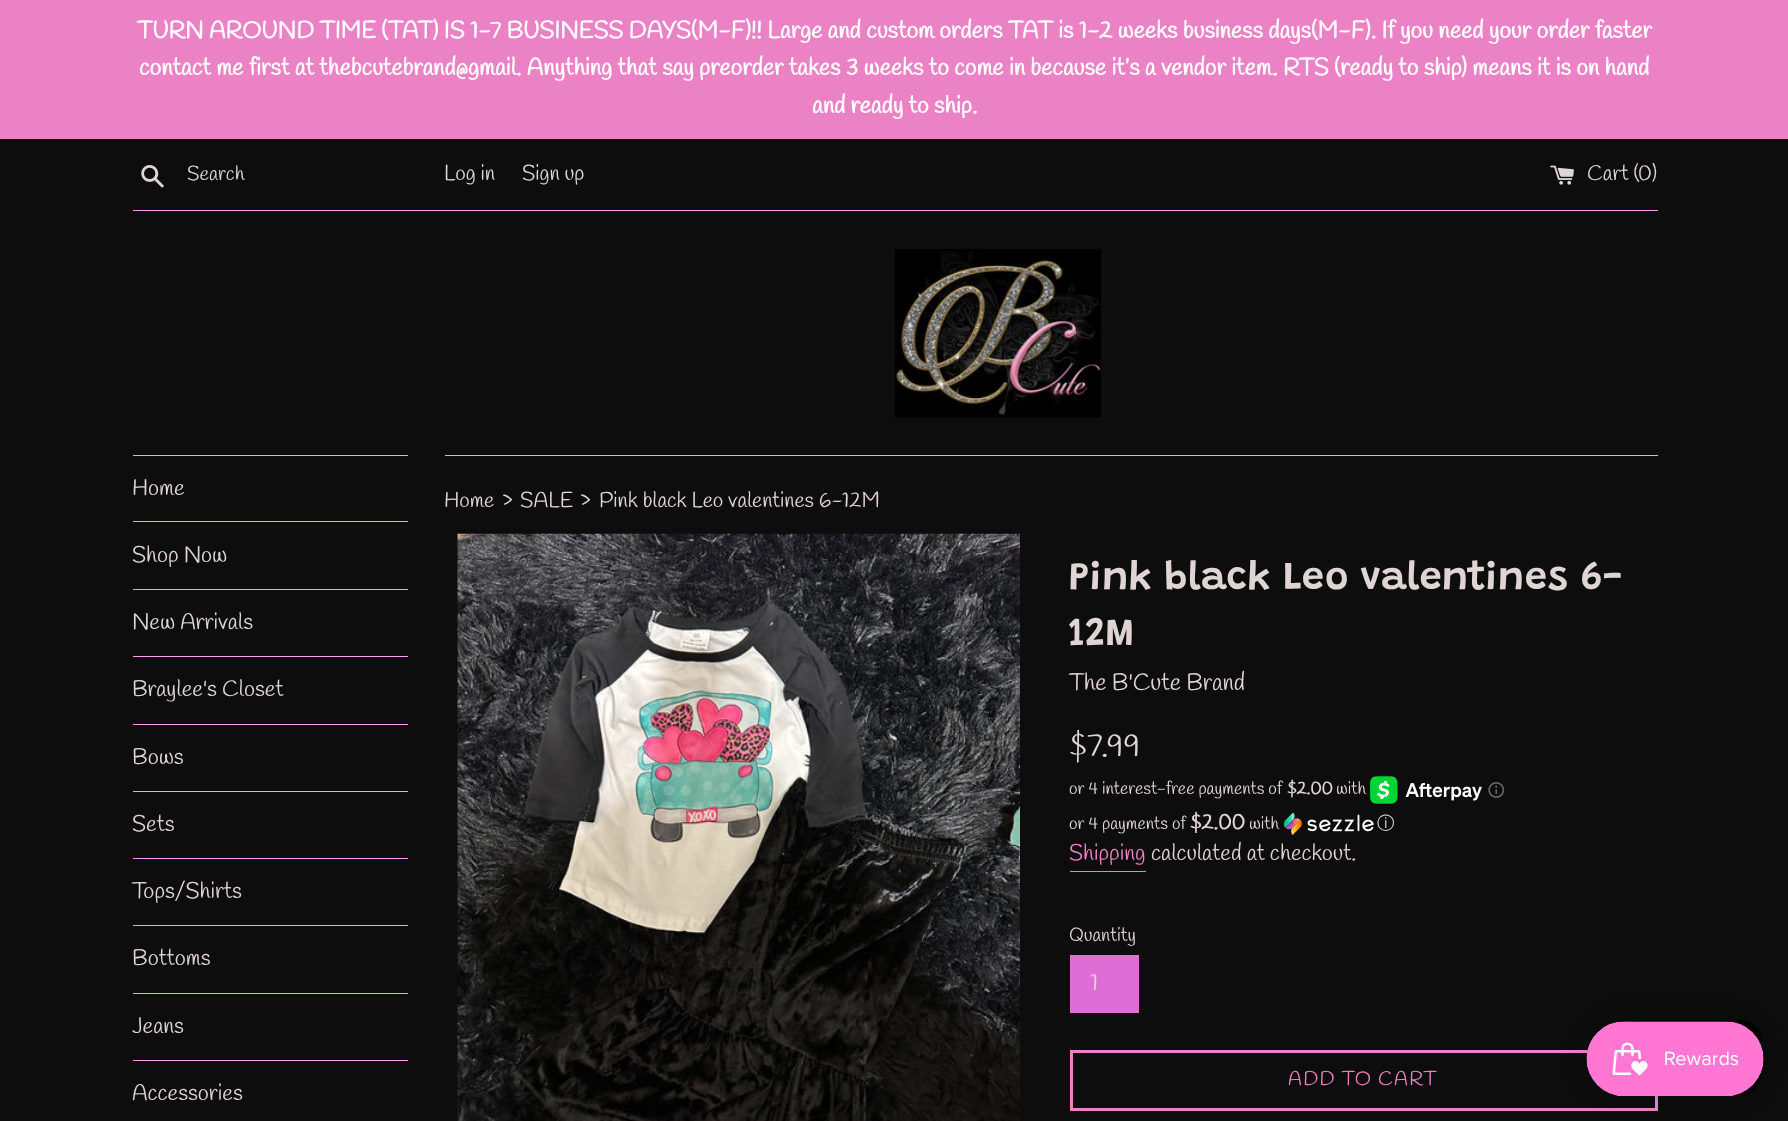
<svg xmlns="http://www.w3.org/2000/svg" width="1788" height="1121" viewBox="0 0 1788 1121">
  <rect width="100%" height="100%" fill="rgb(13,13,13)"/>
  <rect x="0" y="0" width="1788" height="139" fill="rgb(235,130,197)"/>
  <g font-family="Handlee" font-size="23.75" font-weight="bold" fill="rgb(255,255,255)">
    <text x="137" y="38">TURN AROUND TIME (TAT) IS 1-7 BUSINESS DAYS(M-F)!! Large and custom orders TAT is 1-2 weeks business days(M-F). If you need your order faster</text>
    <text x="139" y="75">contact me first at thebcutebrand@gmail. Anything that say preorder takes 3 weeks to come in because it’s a vendor item. RTS (ready to ship) means it is on hand</text>
    <text x="812" y="113">and ready to ship.</text>
  </g>
  <image x="141" y="165" width="23" height="23" href="pic1.png"/>
  <text x="187" y="180" font-family="Handlee" font-size="20" fill="rgb(224,213,213)">Search</text>
  <g font-family="Handlee" font-size="21.4" fill="rgb(224,213,213)">
    <text x="444" y="180">Log in</text>
    <text x="522" y="180">Sign up</text>
  </g>
  <image x="1550" y="165" width="24" height="20" href="pic2.png"/>
  <g font-family="Handlee" font-size="21.4" fill="rgb(224,213,213)">
    <text x="1587" y="180">Cart (</text>
    <text x="1638" y="180">0</text>
    <text x="1652" y="180">)</text>
  </g>
  <rect x="133" y="210" width="1525" height="1" fill="rgb(255,154,240)"/>
  <image x="895" y="249" width="206" height="169" href="pic3.png"/>
  <rect x="133" y="455" width="275" height="1" fill="rgb(255,154,240)"/>
  <rect x="133" y="521" width="275" height="1" fill="rgb(255,154,240)"/>
  <text x="132" y="495" font-family="Handlee" font-size="22.5" fill="rgb(224,213,213)">Home</text>
  <rect x="133" y="589" width="275" height="1" fill="rgb(255,154,240)"/>
  <text x="132" y="562" font-family="Handlee" font-size="22.5" fill="rgb(224,213,213)">Shop Now</text>
  <rect x="133" y="656" width="275" height="1" fill="rgb(255,154,240)"/>
  <text x="132" y="629" font-family="Handlee" font-size="22.5" fill="rgb(224,213,213)">New Arrivals</text>
  <rect x="133" y="724" width="275" height="1" fill="rgb(255,154,240)"/>
  <text x="132" y="696" font-family="Handlee" font-size="22.5" fill="rgb(224,213,213)">Braylee's Closet</text>
  <rect x="133" y="791" width="275" height="1" fill="rgb(255,154,240)"/>
  <text x="132" y="764" font-family="Handlee" font-size="22.5" fill="rgb(224,213,213)">Bows</text>
  <rect x="133" y="858" width="275" height="1" fill="rgb(255,154,240)"/>
  <text x="132" y="831" font-family="Handlee" font-size="22.5" fill="rgb(224,213,213)">Sets</text>
  <rect x="133" y="925" width="275" height="1" fill="rgb(255,154,240)"/>
  <text x="132" y="898" font-family="Handlee" font-size="22.5" fill="rgb(224,213,213)">Tops/Shirts</text>
  <rect x="133" y="993" width="275" height="1" fill="rgb(255,154,240)"/>
  <text x="132" y="965" font-family="Handlee" font-size="22.5" fill="rgb(224,213,213)">Bottoms</text>
  <rect x="133" y="1060" width="275" height="1" fill="rgb(255,154,240)"/>
  <g font-family="Handlee" font-size="22.5" fill="rgb(224,213,213)">
    <text x="132" y="1033">Jeans</text>
    <text x="132" y="1100">Accessories</text>
  </g>
  <rect x="445" y="455" width="1213" height="1" fill="rgb(255,154,240)"/>
  <text x="444" y="507" font-family="Handlee" font-size="21.4" fill="rgb(224,213,213)">Home</text>
  <text x="502" y="507" font-family="Handlee" font-size="26" fill="rgb(224,213,213)">›</text>
  <text x="520" y="507" font-family="Handlee" font-size="21.4" fill="rgb(224,213,213)">SALE</text>
  <text x="580" y="507" font-family="Handlee" font-size="26" fill="rgb(224,213,213)">›</text>
  <text x="599" y="507" font-family="Handlee" font-size="21.4" fill="rgb(224,213,213)">Pink black Leo valentines 6-12M</text>
  <image x="457" y="533" width="563" height="588" href="pic4.png"/>
  <g font-family="Grandstander" font-size="40" font-weight="600" fill="rgb(224,213,213)">
    <text>
      <tspan x="1069" y="589">Pink black Leo valentines 6-</tspan>
      <tspan x="1069" y="645">12M</tspan>
    </text>
  </g>
  <text x="1069" y="690" font-family="Handlee" font-size="23.75" fill="rgb(224,213,213)">The B'Cute Brand</text>
  <text x="1069" y="756" font-family="Handlee" font-size="33" fill="rgb(224,213,213)">$7.99</text>
  <text x="1069" y="794" font-family="Handlee" font-size="17.5" fill="rgb(224,213,213)">or 4 interest-free payments of</text>
  <text x="1287" y="794" font-family="Handlee" font-size="17.5" font-weight="bold" fill="rgb(224,213,213)">$2.00</text>
  <text x="1336" y="794" font-family="Handlee" font-size="17.5" fill="rgb(224,213,213)">with</text>
  <image x="1370" y="776" width="112" height="28" href="pic5.png"/>
  <image x="1488" y="782" width="17" height="16" href="pic6.png"/>
  <text x="1069" y="829" font-family="Handlee" font-size="17.5" fill="rgb(224,213,213)">or 4 payments of</text>
  <text x="1190" y="829" font-family="Handlee" font-size="21" font-weight="bold" fill="rgb(224,213,213)">$2.00</text>
  <text x="1249" y="829" font-family="Handlee" font-size="17.5" fill="rgb(224,213,213)">with</text>
  <image x="1284" y="813" width="90" height="22" href="pic7.png"/>
  <text x="1377" y="829" font-family="WenQuanYi Zen Hei" font-size="17.5" font-weight="500" fill="rgb(224,213,213)">ⓘ</text>
  <text x="1069" y="860" font-family="Handlee" font-size="22.5" fill="rgb(235,130,197)">Shipping</text>
  <rect x="1070" y="871" width="76" height="1" fill="rgb(235,130,197)"/>
  <text x="1151" y="860" font-family="Handlee" font-size="22.5" fill="rgb(224,213,213)">calculated at checkout.</text>
  <text x="1069" y="941" font-family="Handlee" font-size="19" fill="rgb(224,213,213)">Quantity</text>
  <rect x="1070" y="955" width="69" height="58" fill="rgb(222,110,214)"/>
  <text x="1090" y="990" font-family="Handlee" font-size="23.75" fill="rgb(224,213,213)">1</text>
  <rect x="1071.5" y="1051.5" width="585" height="58" fill="none" stroke="rgb(235,130,197)" stroke-width="3"/>
  <text x="1288" y="1085" font-family="Handlee" font-size="20" letter-spacing="1.25" fill="rgb(235,130,197)">ADD TO CART</text>
  <rect x="1620" y="1020" width="141" height="75" rx="20" fill="rgba(0,0,0,0.15)" filter="blur(3px)"/>
  <rect x="1620" y="1020" width="141" height="75" rx="20" fill="rgb(0,0,0)"/>
  <rect x="1586" y="1021" width="178" height="75" rx="37.5" fill="rgba(0,0,0,0.05)" filter="blur(15.5px)"/>
  <image x="1586" y="1021" width="178" height="75" href="pic8.png"/>
</svg>
